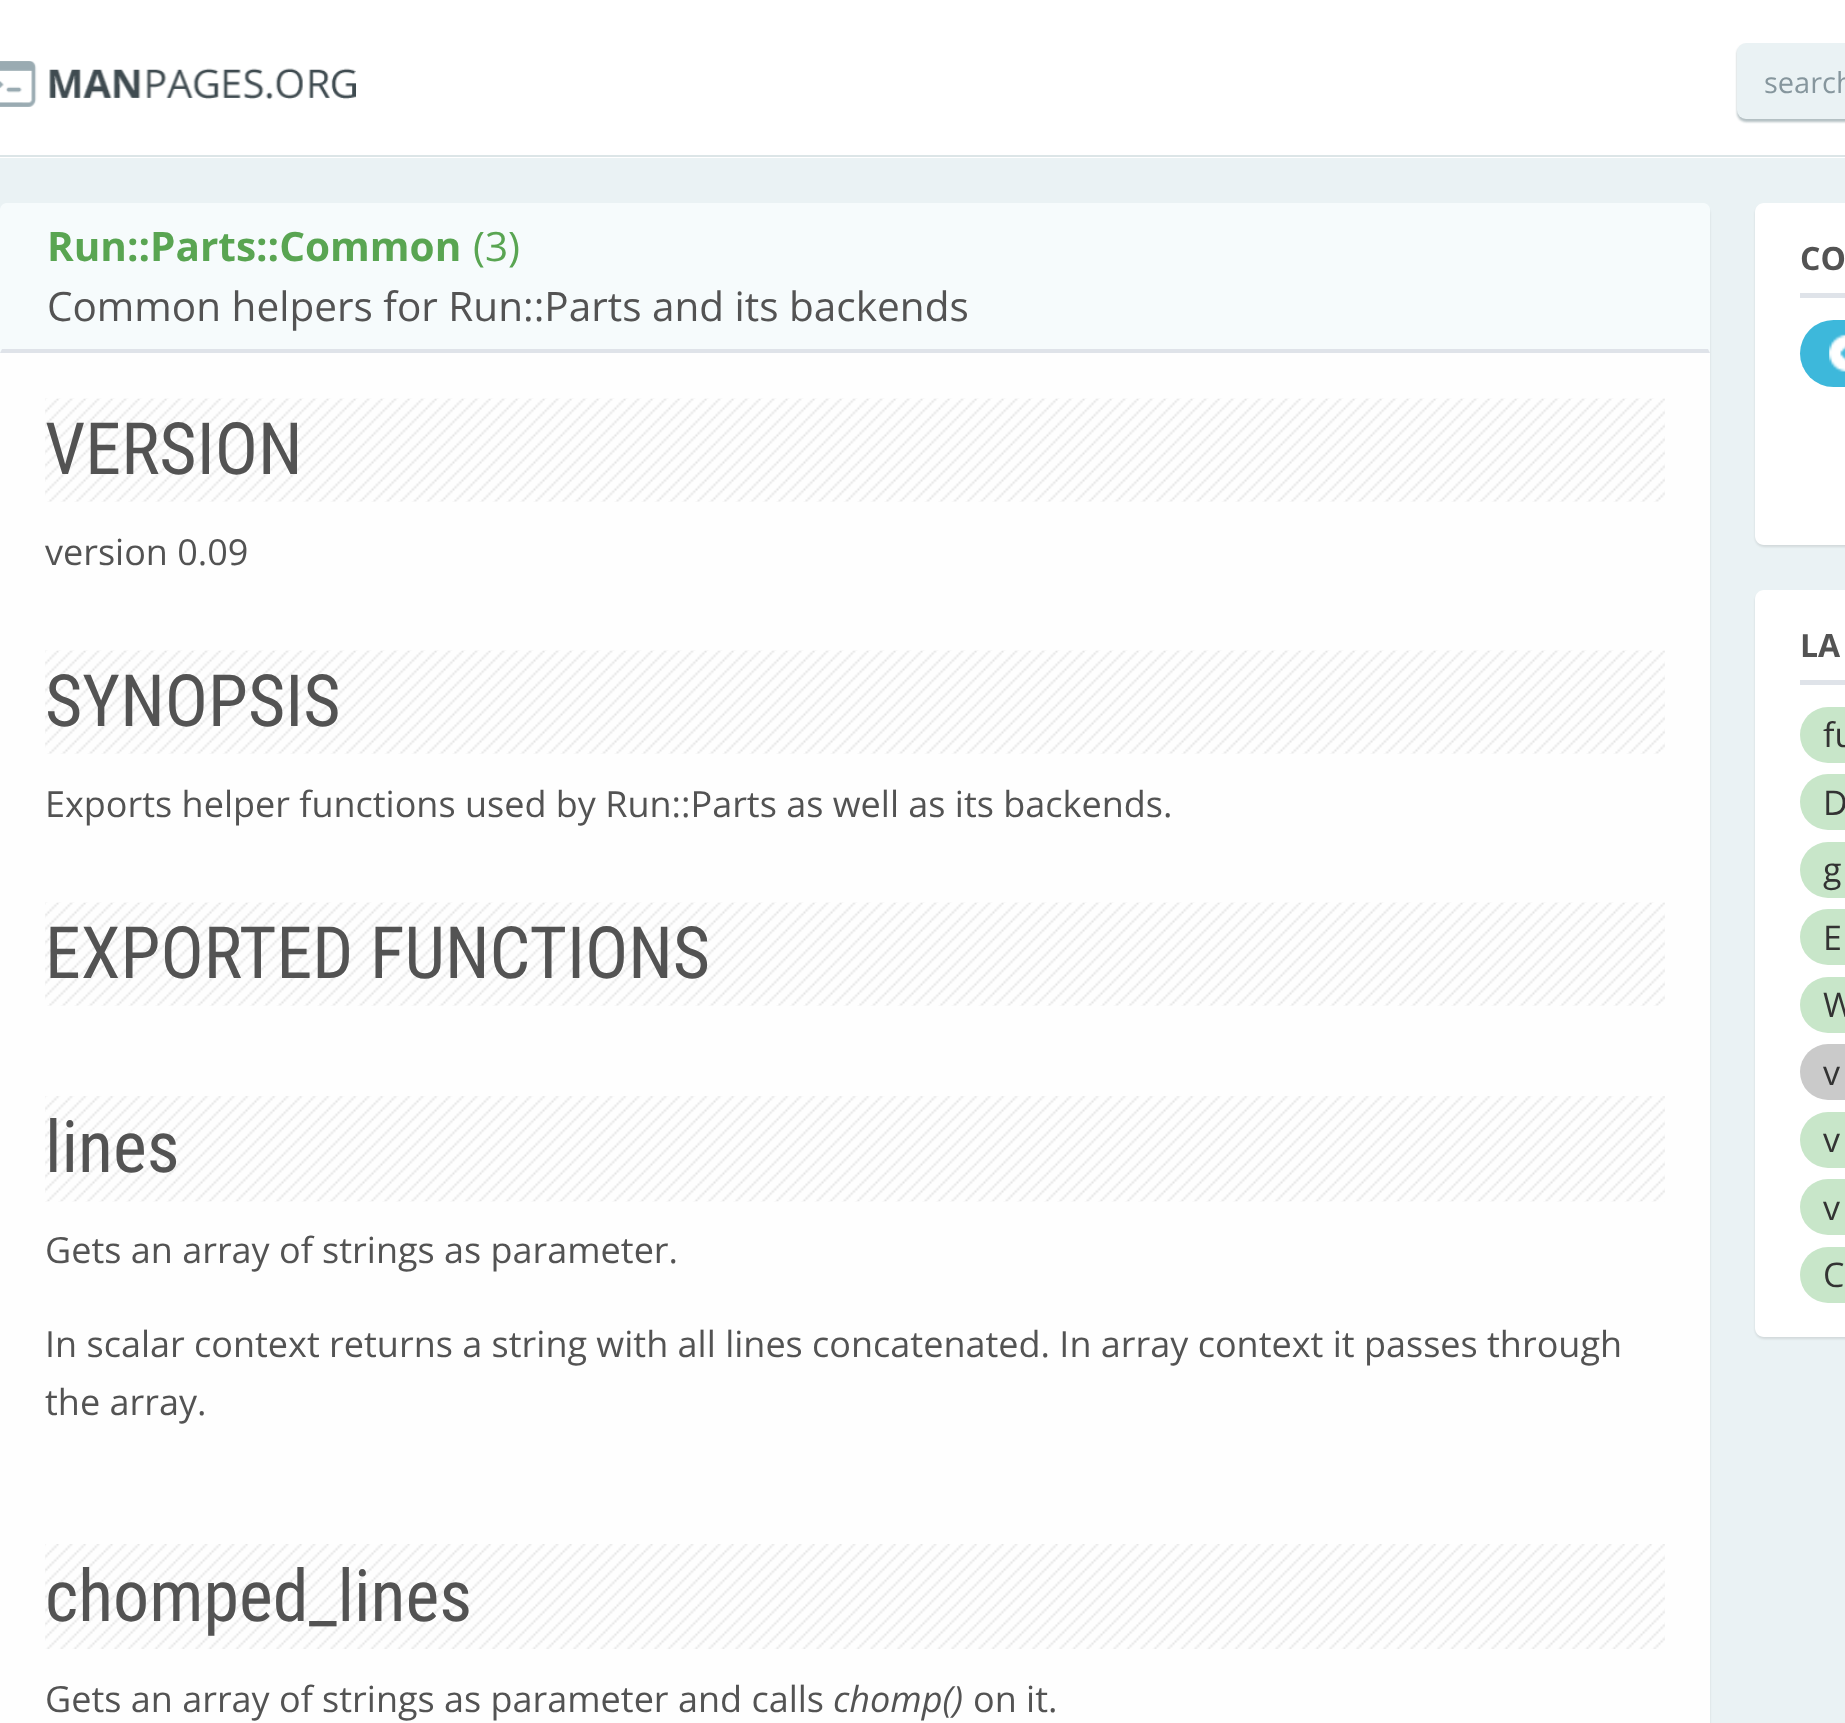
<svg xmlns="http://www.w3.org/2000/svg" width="1845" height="1723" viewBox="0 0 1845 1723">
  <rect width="100%" height="100%" fill="rgb(234,242,244)"/>
  <rect x="0" y="0" width="1845" height="158" fill="rgb(255,255,255)"/>
  <rect x="0" y="155" width="1845" height="2" fill="rgb(220,229,231)"/>
  <image x="0" y="61" width="356" height="46" href="pic1.png"/>
  <rect x="1737" y="45" width="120" height="77" rx="9" fill="rgba(6,47,55,0.3)" filter="blur(1px)"/>
  <rect x="1737" y="43" width="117" height="76" rx="9" fill="rgb(234,242,244)"/>
  <text x="1764" y="93" font-family="Open Sans" font-size="29" fill="rgb(134,150,157)">search</text>
  <rect x="0" y="205" width="1710" height="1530" rx="9" fill="rgba(0,0,0,0.1)" filter="blur(1px)"/>
  <path d="M9 203H1701C1706 203 1710 207 1710 212V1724H0V212C0 207 4 203 9 203Z" fill="rgb(254,254,254)"/>
  <path d="M7 203H1703C1707 203 1710 206 1710 210V353H0V210C0 206 3 203 7 203Z" fill="rgb(246,251,252)"/>
  <path d="M1710 353H0L2 349H1708Z" fill="rgb(223,227,233)"/>
  <text x="47" y="261" font-family="Open Sans" font-size="40.5" font-weight="bold" fill="rgb(89,165,82)">Run::Parts::Common</text>
  <text x="473" y="261" font-family="Open Sans" font-size="40.5" fill="rgb(89,165,82)">(3)</text>
  <text x="47" y="321" font-family="Open Sans" font-size="40.5" fill="rgb(83,83,83)">Common helpers for Run::Parts and its backends</text>
  <image x="45" y="398" width="1620" height="104" href="pic2.png"/>
  <text x="45" y="474" font-family="Roboto Condensed" font-size="72" fill="rgb(83,83,83)">VERSION</text>
  <text x="45" y="565" font-family="Open Sans" font-size="36" fill="rgb(83,83,83)">version 0.09</text>
  <image x="45" y="650" width="1620" height="104" href="pic2.png"/>
  <text x="45" y="726" font-family="Roboto Condensed" font-size="72" fill="rgb(83,83,83)">SYNOPSIS</text>
  <text x="45" y="817" font-family="Open Sans" font-size="36" fill="rgb(83,83,83)">Exports helper functions used by Run::Parts as well as its backends.</text>
  <image x="45" y="902" width="1620" height="104" href="pic2.png"/>
  <text x="45" y="978" font-family="Roboto Condensed" font-size="72" fill="rgb(83,83,83)">EXPORTED FUNCTIONS</text>
  <image x="45" y="1096" width="1620" height="106" href="pic3.png"/>
  <text x="45" y="1172" font-family="Roboto Condensed" font-size="72" fill="rgb(83,83,83)">lines</text>
  <g font-family="Open Sans" font-size="36" fill="rgb(83,83,83)">
    <text x="45" y="1263">Gets an array of strings as parameter.</text>
    <text>
      <tspan x="45" y="1357">In scalar context returns a string with all lines concatenated. In array context it passes through</tspan>
      <tspan x="45" y="1415">the array.</tspan>
    </text>
  </g>
  <image x="45" y="1544" width="1620" height="105" href="pic4.png"/>
  <text x="45" y="1621" font-family="Roboto Condensed" font-size="72" fill="rgb(83,83,83)">chomped_lines</text>
  <text x="45" y="1712" font-family="Open Sans" font-size="36" fill="rgb(83,83,83)">Gets an array of strings as parameter and calls</text>
  <text x="833" y="1712" font-family="Open Sans" font-size="36" font-style="italic" fill="rgb(83,83,83)">chomp()</text>
  <text x="973" y="1712" font-family="Open Sans" font-size="36" fill="rgb(83,83,83)">on it.</text>
  <rect x="1755" y="205" width="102" height="342" rx="9" fill="rgba(0,0,0,0.1)" filter="blur(1px)"/>
  <path d="M1764 203H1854V545H1764C1759 545 1755 541 1755 536V212C1755 207 1759 203 1764 203Z" fill="rgb(255,255,255)"/>
  <rect x="1800" y="293" width="45" height="5" fill="rgb(223,227,233)"/>
  <text x="1800" y="270" font-family="Open Sans" font-size="32" font-weight="bold" fill="rgb(83,83,83)">CO</text>
  <rect x="1800" y="320" width="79" height="67" rx="33.5" fill="rgb(61,184,219)"/>
  <image x="1829" y="334" width="16" height="38" href="pic5.png"/>
  <rect x="1755" y="592" width="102" height="747" rx="9" fill="rgba(0,0,0,0.1)" filter="blur(1px)"/>
  <path d="M1764 590H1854V1337H1764C1759 1337 1755 1333 1755 1328V599C1755 594 1759 590 1764 590Z" fill="rgb(255,255,255)"/>
  <rect x="1800" y="680" width="45" height="5" fill="rgb(223,227,233)"/>
  <text x="1800" y="657" font-family="Open Sans" font-size="32" font-weight="bold" fill="rgb(83,83,83)">LA</text>
  <rect x="1800" y="707" width="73" height="56" rx="28" fill="rgb(200,230,201)"/>
  <text x="1823" y="747" font-family="Open Sans" font-size="34" fill="rgb(51,51,51)">fu</text>
  <rect x="1800" y="774" width="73" height="56" rx="28" fill="rgb(200,230,201)"/>
  <text x="1823" y="815" font-family="Open Sans" font-size="34" fill="rgb(51,51,51)">D</text>
  <rect x="1800" y="842" width="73" height="56" rx="28" fill="rgb(200,230,201)"/>
  <text x="1823" y="882" font-family="Open Sans" font-size="34" fill="rgb(51,51,51)">g</text>
  <rect x="1800" y="909" width="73" height="56" rx="28" fill="rgb(200,230,201)"/>
  <text x="1823" y="950" font-family="Open Sans" font-size="34" fill="rgb(51,51,51)">E</text>
  <rect x="1800" y="977" width="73" height="56" rx="28" fill="rgb(200,230,201)"/>
  <text x="1823" y="1017" font-family="Open Sans" font-size="34" fill="rgb(51,51,51)">W</text>
  <rect x="1800" y="1044" width="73" height="56" rx="28" fill="rgb(202,202,202)"/>
  <text x="1823" y="1085" font-family="Open Sans" font-size="34" fill="rgb(51,51,51)">v</text>
  <rect x="1800" y="1112" width="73" height="56" rx="28" fill="rgb(200,230,201)"/>
  <text x="1823" y="1152" font-family="Open Sans" font-size="34" fill="rgb(51,51,51)">v</text>
  <rect x="1800" y="1179" width="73" height="56" rx="28" fill="rgb(200,230,201)"/>
  <text x="1823" y="1220" font-family="Open Sans" font-size="34" fill="rgb(51,51,51)">v</text>
  <rect x="1800" y="1247" width="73" height="56" rx="28" fill="rgb(200,230,201)"/>
  <text x="1823" y="1287" font-family="Open Sans" font-size="34" fill="rgb(51,51,51)">C</text>
</svg>
